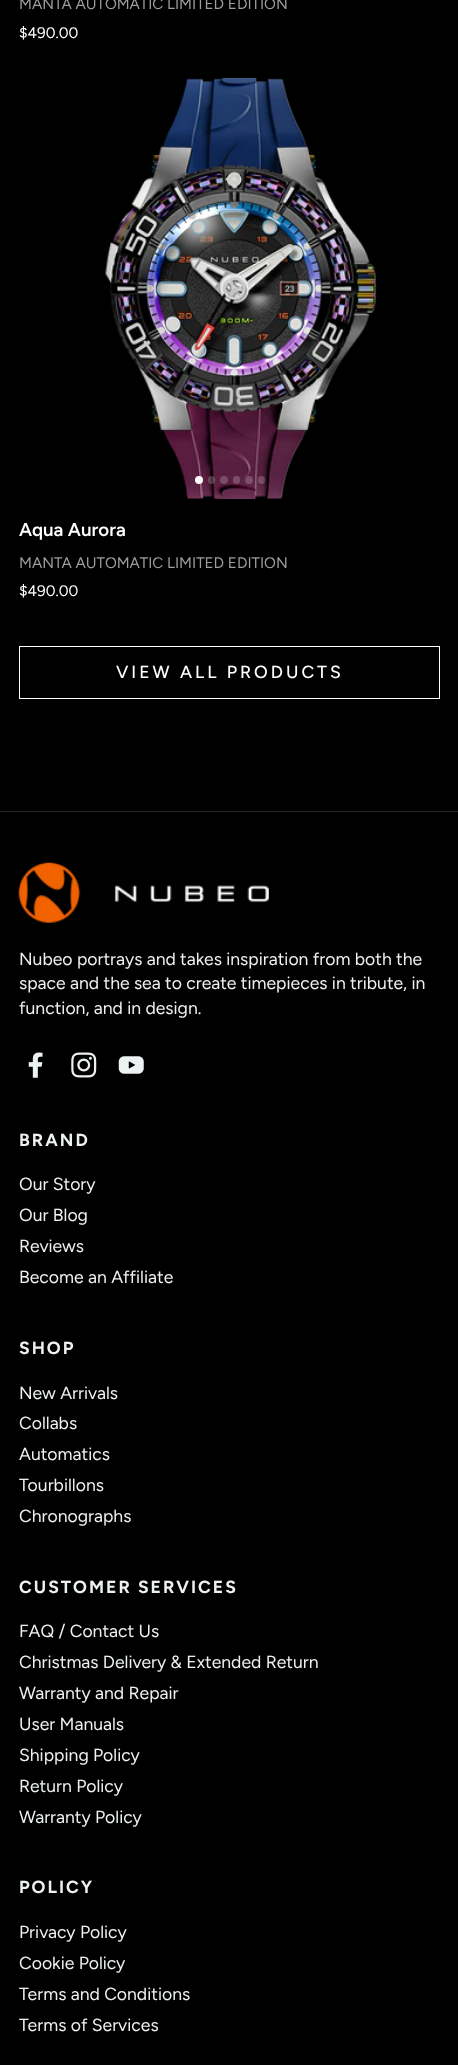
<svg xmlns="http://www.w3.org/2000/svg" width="458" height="2065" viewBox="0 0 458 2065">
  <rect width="100%" height="100%" fill="rgb(0,0,0)"/>
  <text x="19" y="9" font-family="Figtree" font-size="15.25" fill="rgb(158,158,158)">MANTA AUTOMATIC LIMITED EDITION</text>
  <text x="19" y="38" font-family="Figtree" font-size="15.25" fill="rgb(255,255,255)">$490.00</text>
  <image x="105" y="77" width="272" height="422" href="pic1.png"/>
  <circle cx="199" cy="480" r="4" fill="rgb(255,255,255)"/>
  <rect x="208" y="476" width="7" height="8" rx="3.5" fill="rgba(255,255,255,0.2)"/>
  <circle cx="224" cy="480" r="4" fill="rgba(255,255,255,0.2)"/>
  <rect x="233" y="476" width="7" height="8" rx="3.5" fill="rgba(255,255,255,0.2)"/>
  <circle cx="249" cy="480" r="4" fill="rgba(255,255,255,0.2)"/>
  <rect x="258" y="476" width="7" height="8" rx="3.5" fill="rgba(255,255,255,0.2)"/>
  <text x="19" y="536" font-family="Figtree" font-size="18.75" font-weight="600" fill="rgb(255,255,255)">Aqua Aurora</text>
  <text x="19" y="568" font-family="Figtree" font-size="15.25" fill="rgb(158,158,158)">MANTA AUTOMATIC LIMITED EDITION</text>
  <text x="19" y="596" font-family="Figtree" font-size="15.25" fill="rgb(255,255,255)">$490.00</text>
  <rect x="19.5" y="646.5" width="420" height="52" fill="none" stroke="rgb(255,255,255)"/>
  <text x="116" y="678" font-family="Figtree" font-size="17.6" font-weight="500" letter-spacing="3" fill="rgb(255,255,255)">VIEW ALL PRODUCTS</text>
  <rect x="0" y="811" width="458" height="1" fill="rgb(36,36,36)"/>
  <image x="18" y="862" width="251" height="61" href="pic2.png"/>
  <g font-family="Figtree" font-size="17.6" fill="rgb(238,241,242)">
    <text>
      <tspan x="19" y="965">Nubeo portrays and takes inspiration from both the</tspan>
      <tspan x="19" y="989">space and the sea to create timepieces in tribute, in</tspan>
      <tspan x="19" y="1014">function, and in design.</tspan>
    </text>
  </g>
  <image x="28" y="1052" width="15" height="26" href="pic3.png"/>
  <image x="71" y="1052" width="26" height="26" href="pic4.png"/>
  <image x="118" y="1056" width="26" height="18" href="pic5.png"/>
  <text x="19" y="1146" font-family="Figtree" font-size="17.6" font-weight="bold" letter-spacing="2" fill="rgb(238,241,242)">BRAND</text>
  <g font-family="Figtree" font-size="17.6" fill="rgb(238,241,242)">
    <text>
      <tspan x="19" y="1190">Our Story</tspan>
      <tspan x="19" y="1221">Our Blog</tspan>
      <tspan x="19" y="1252">Reviews</tspan>
      <tspan x="19" y="1283">Become an Affiliate</tspan>
    </text>
  </g>
  <text x="19" y="1354" font-family="Figtree" font-size="17.6" font-weight="bold" letter-spacing="2" fill="rgb(238,241,242)">SHOP</text>
  <g font-family="Figtree" font-size="17.6" fill="rgb(238,241,242)">
    <text>
      <tspan x="19" y="1399">New Arrivals</tspan>
      <tspan x="19" y="1429">Collabs</tspan>
      <tspan x="19" y="1460">Automatics</tspan>
      <tspan x="19" y="1491">Tourbillons</tspan>
      <tspan x="19" y="1522">Chronographs</tspan>
    </text>
  </g>
  <text x="19" y="1593" font-family="Figtree" font-size="17.6" font-weight="bold" letter-spacing="2" fill="rgb(238,241,242)">CUSTOMER SERVICES</text>
  <g font-family="Figtree" font-size="17.6" fill="rgb(238,241,242)">
    <text>
      <tspan x="19" y="1637">FAQ / Contact Us</tspan>
      <tspan x="19" y="1668">Christmas Delivery &amp; Extended Return</tspan>
      <tspan x="19" y="1699">Warranty and Repair</tspan>
      <tspan x="19" y="1730">User Manuals</tspan>
      <tspan x="19" y="1761">Shipping Policy</tspan>
      <tspan x="19" y="1792">Return Policy</tspan>
      <tspan x="19" y="1823">Warranty Policy</tspan>
    </text>
  </g>
  <text x="19" y="1893" font-family="Figtree" font-size="17.6" font-weight="bold" letter-spacing="2" fill="rgb(238,241,242)">POLICY</text>
  <g font-family="Figtree" font-size="17.6" fill="rgb(238,241,242)">
    <text>
      <tspan x="19" y="1938">Privacy Policy</tspan>
      <tspan x="19" y="1969">Cookie Policy</tspan>
      <tspan x="19" y="2000">Terms and Conditions</tspan>
      <tspan x="19" y="2031">Terms of Services</tspan>
    </text>
  </g>
</svg>
